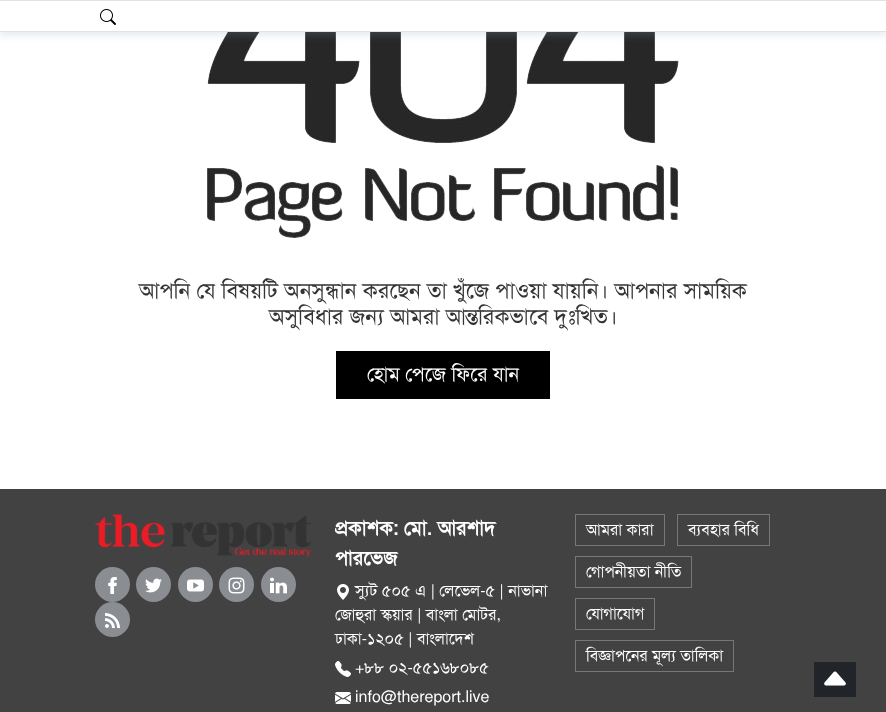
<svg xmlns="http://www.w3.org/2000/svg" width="886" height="712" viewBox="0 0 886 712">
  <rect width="100%" height="100%" fill="rgb(255,255,255)"/>
  <image x="207" y="32" width="472" height="206" href="pic2.png"/>
  <rect x="-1" y="2" width="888" height="34" fill="rgba(144,161,180,0.2)" filter="blur(3.5px)"/>
  <rect x="0" y="1" width="886" height="30" fill="rgb(255,255,255)"/>
  <rect x="0" y="0" width="886" height="1" fill="rgb(226,226,226)"/>
  <rect x="0" y="31" width="886" height="1" fill="rgb(226,226,226)"/>
  <image x="100" y="9" width="16" height="16" href="pic1.png"/>
  <g font-family="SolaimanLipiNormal" font-size="22" fill="rgb(51,51,51)">
    <text x="139" y="298">আপনি যে বিষয়টি অনসুন্ধান করছেন তা খুঁজে পাওয়া যায়নি। আপনার সাময়িক</text>
    <text x="269" y="324">অসুবিধার জন্য আমরা আন্তরিকভাবে দুঃখিত।</text>
  </g>
  <rect x="336" y="351" width="214" height="48" fill="rgb(0,0,0)"/>
  <text x="367" y="381" font-family="SolaimanLipiNormal" font-size="20" fill="rgb(255,255,255)">হোম পেজে ফিরে যান</text>
  <rect x="0" y="489" width="886" height="223" fill="rgb(66,66,66)"/>
  <image x="95" y="514" width="216" height="43" href="pic3.png"/>
  <circle cx="112.5" cy="584.5" r="17.5" fill="rgb(138,142,147)"/>
  <image x="108" y="577" width="9" height="17" href="pic4.png"/>
  <circle cx="153.5" cy="584.5" r="17.5" fill="rgb(138,142,147)"/>
  <image x="145" y="578" width="17" height="15" href="pic5.png"/>
  <circle cx="195.5" cy="584.5" r="17.5" fill="rgb(138,142,147)"/>
  <image x="187" y="579" width="17" height="13" href="pic6.png"/>
  <circle cx="236.5" cy="584.5" r="17.5" fill="rgb(138,142,147)"/>
  <image x="228" y="577" width="17" height="17" href="pic7.png"/>
  <circle cx="278.5" cy="584.5" r="17.5" fill="rgb(138,142,147)"/>
  <image x="270" y="577" width="17" height="17" href="pic8.png"/>
  <circle cx="112.5" cy="619.5" r="17.5" fill="rgb(138,142,147)"/>
  <image x="105" y="613" width="15" height="15" href="pic9.png"/>
  <g font-family="SolaimanLipiNormal" font-size="20" font-weight="bold" fill="rgb(255,255,255)">
    <text>
      <tspan x="335" y="535">প্রকাশক: মো. আরশাদ</tspan>
      <tspan x="335" y="565">পারভেজ</tspan>
    </text>
  </g>
  <image x="337" y="584" width="12" height="16" href="pic10.png"/>
  <g font-family="SolaimanLipiNormal" font-size="16" fill="rgb(255,255,255)">
    <text x="355" y="596">স্যুট ৫০৫ এ | লেভেল-৫ | নাভানা</text>
    <text>
      <tspan x="335" y="620">জোহুরা স্কয়ার | বাংলা মোটর,</tspan>
      <tspan x="335" y="644">ঢাকা-১২০৫ | বাংলাদেশ</tspan>
    </text>
  </g>
  <image x="335" y="661" width="16" height="16" href="pic11.png"/>
  <text x="355" y="673" font-family="SolaimanLipiNormal" font-size="16" fill="rgb(255,255,255)">+৮৮ ০২-৫৫১৬৮০৮৫</text>
  <image x="335" y="692" width="16" height="12" href="pic12.png"/>
  <text x="355" y="702" font-family="SolaimanLipiNormal" font-size="16" fill="rgb(255,255,255)">info@thereport.live</text>
  <rect x="575.5" y="514.5" width="89" height="31" fill="none" stroke="rgb(119,119,119)"/>
  <text x="586" y="535" font-family="SolaimanLipiNormal" font-size="16" fill="rgb(255,255,255)">আমরা কারা</text>
  <rect x="677.5" y="514.5" width="92" height="31" fill="none" stroke="rgb(119,119,119)"/>
  <text x="688" y="535" font-family="SolaimanLipiNormal" font-size="16" fill="rgb(255,255,255)">ব্যবহার বিধি</text>
  <rect x="575.5" y="556.5" width="116" height="31" fill="none" stroke="rgb(119,119,119)"/>
  <text x="586" y="577" font-family="SolaimanLipiNormal" font-size="16" fill="rgb(255,255,255)">গোপনীয়তা নীতি</text>
  <rect x="575.5" y="598.5" width="79" height="31" fill="none" stroke="rgb(119,119,119)"/>
  <text x="586" y="619" font-family="SolaimanLipiNormal" font-size="16" fill="rgb(255,255,255)">যোগাযোগ</text>
  <rect x="575.5" y="640.5" width="158" height="31" fill="none" stroke="rgb(119,119,119)"/>
  <text x="586" y="661" font-family="SolaimanLipiNormal" font-size="16" fill="rgb(255,255,255)">বিজ্ঞাপনের মূল্য তালিকা</text>
  <rect x="814" y="662" width="42" height="35" fill="rgb(33,37,41)"/>
  <image x="824" y="671" width="22" height="15" href="pic13.png"/>
</svg>
